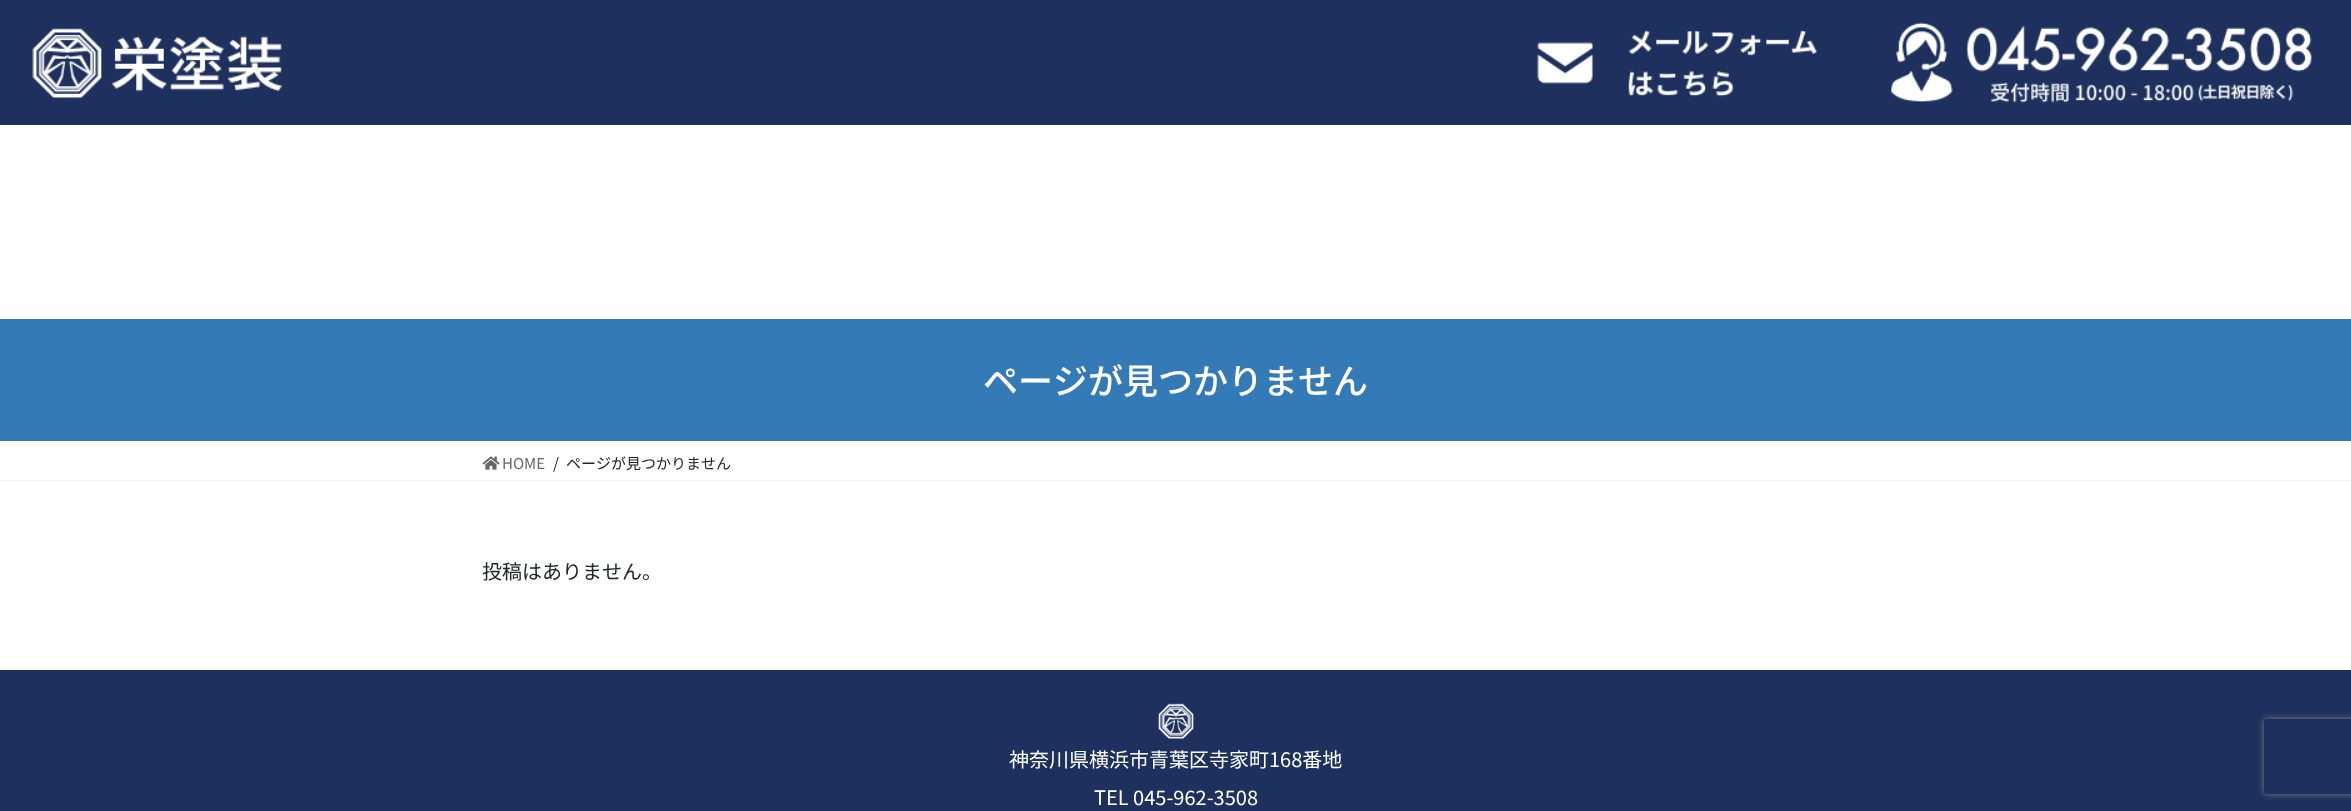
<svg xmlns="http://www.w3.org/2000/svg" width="2351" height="811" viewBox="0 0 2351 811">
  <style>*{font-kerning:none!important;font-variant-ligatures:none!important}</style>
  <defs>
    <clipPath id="clip1"><path d="M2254 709H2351V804H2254ZM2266.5 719H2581.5C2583 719 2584 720 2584 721.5V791.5C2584 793 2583 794 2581.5 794H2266.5C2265 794 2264 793 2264 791.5V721.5C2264 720 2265 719 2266.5 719Z" clip-rule="evenodd"/></clipPath>
  </defs>
  <rect width="100%" height="100%" fill="rgb(255,255,255)"/>
  <rect x="0" y="0" width="2351" height="125" fill="rgb(30,48,93)"/>
  <image x="32" y="28" width="251" height="70" href="pic1.png"/>
  <image x="1537" y="30" width="280" height="67" href="pic2.png"/>
  <image x="1891" y="22" width="421" height="81" href="pic3.png"/>
  <rect x="0" y="319" width="2351" height="122" fill="rgb(51,122,183)"/>
  <text x="983" y="394" font-family="Noto Sans JP" font-size="35" font-weight="500" fill="rgb(255,255,255)">ページが見つかりません</text>
  <rect x="0" y="480" width="2351" height="1" fill="rgb(242,242,242)"/>
  <image x="482" y="456" width="18" height="14" href="pic4.png"/>
  <text x="502" y="469" font-family="Noto Sans JP" font-size="15" fill="rgb(102,102,102)">HOME</text>
  <g font-family="Noto Sans JP" font-size="15" fill="rgb(33,37,41)">
    <text x="553" y="469">/</text>
    <text x="566" y="469">ページが見つかりません</text>
  </g>
  <text x="482" y="579" font-family="Noto Sans JP" font-size="20" fill="rgb(33,37,41)">投稿はありません。</text>
  <rect x="0" y="670" width="2351" height="141" fill="rgb(30,48,93)"/>
  <image x="1158" y="703" width="36" height="36" href="pic5.png"/>
  <g font-family="Noto Sans JP" font-size="20" fill="rgb(255,255,255)">
    <text x="1009" y="767">神奈川県横浜市青葉区寺家町168番地</text>
    <text x="1094" y="805">TEL 045-962-3508</text>
  </g>
  <g clip-path="url(#clip1)">
    <rect x="2264" y="719" width="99" height="75" rx="2.5" fill="rgb(128,128,128)" filter="blur(3px)"/>
  </g>
</svg>
